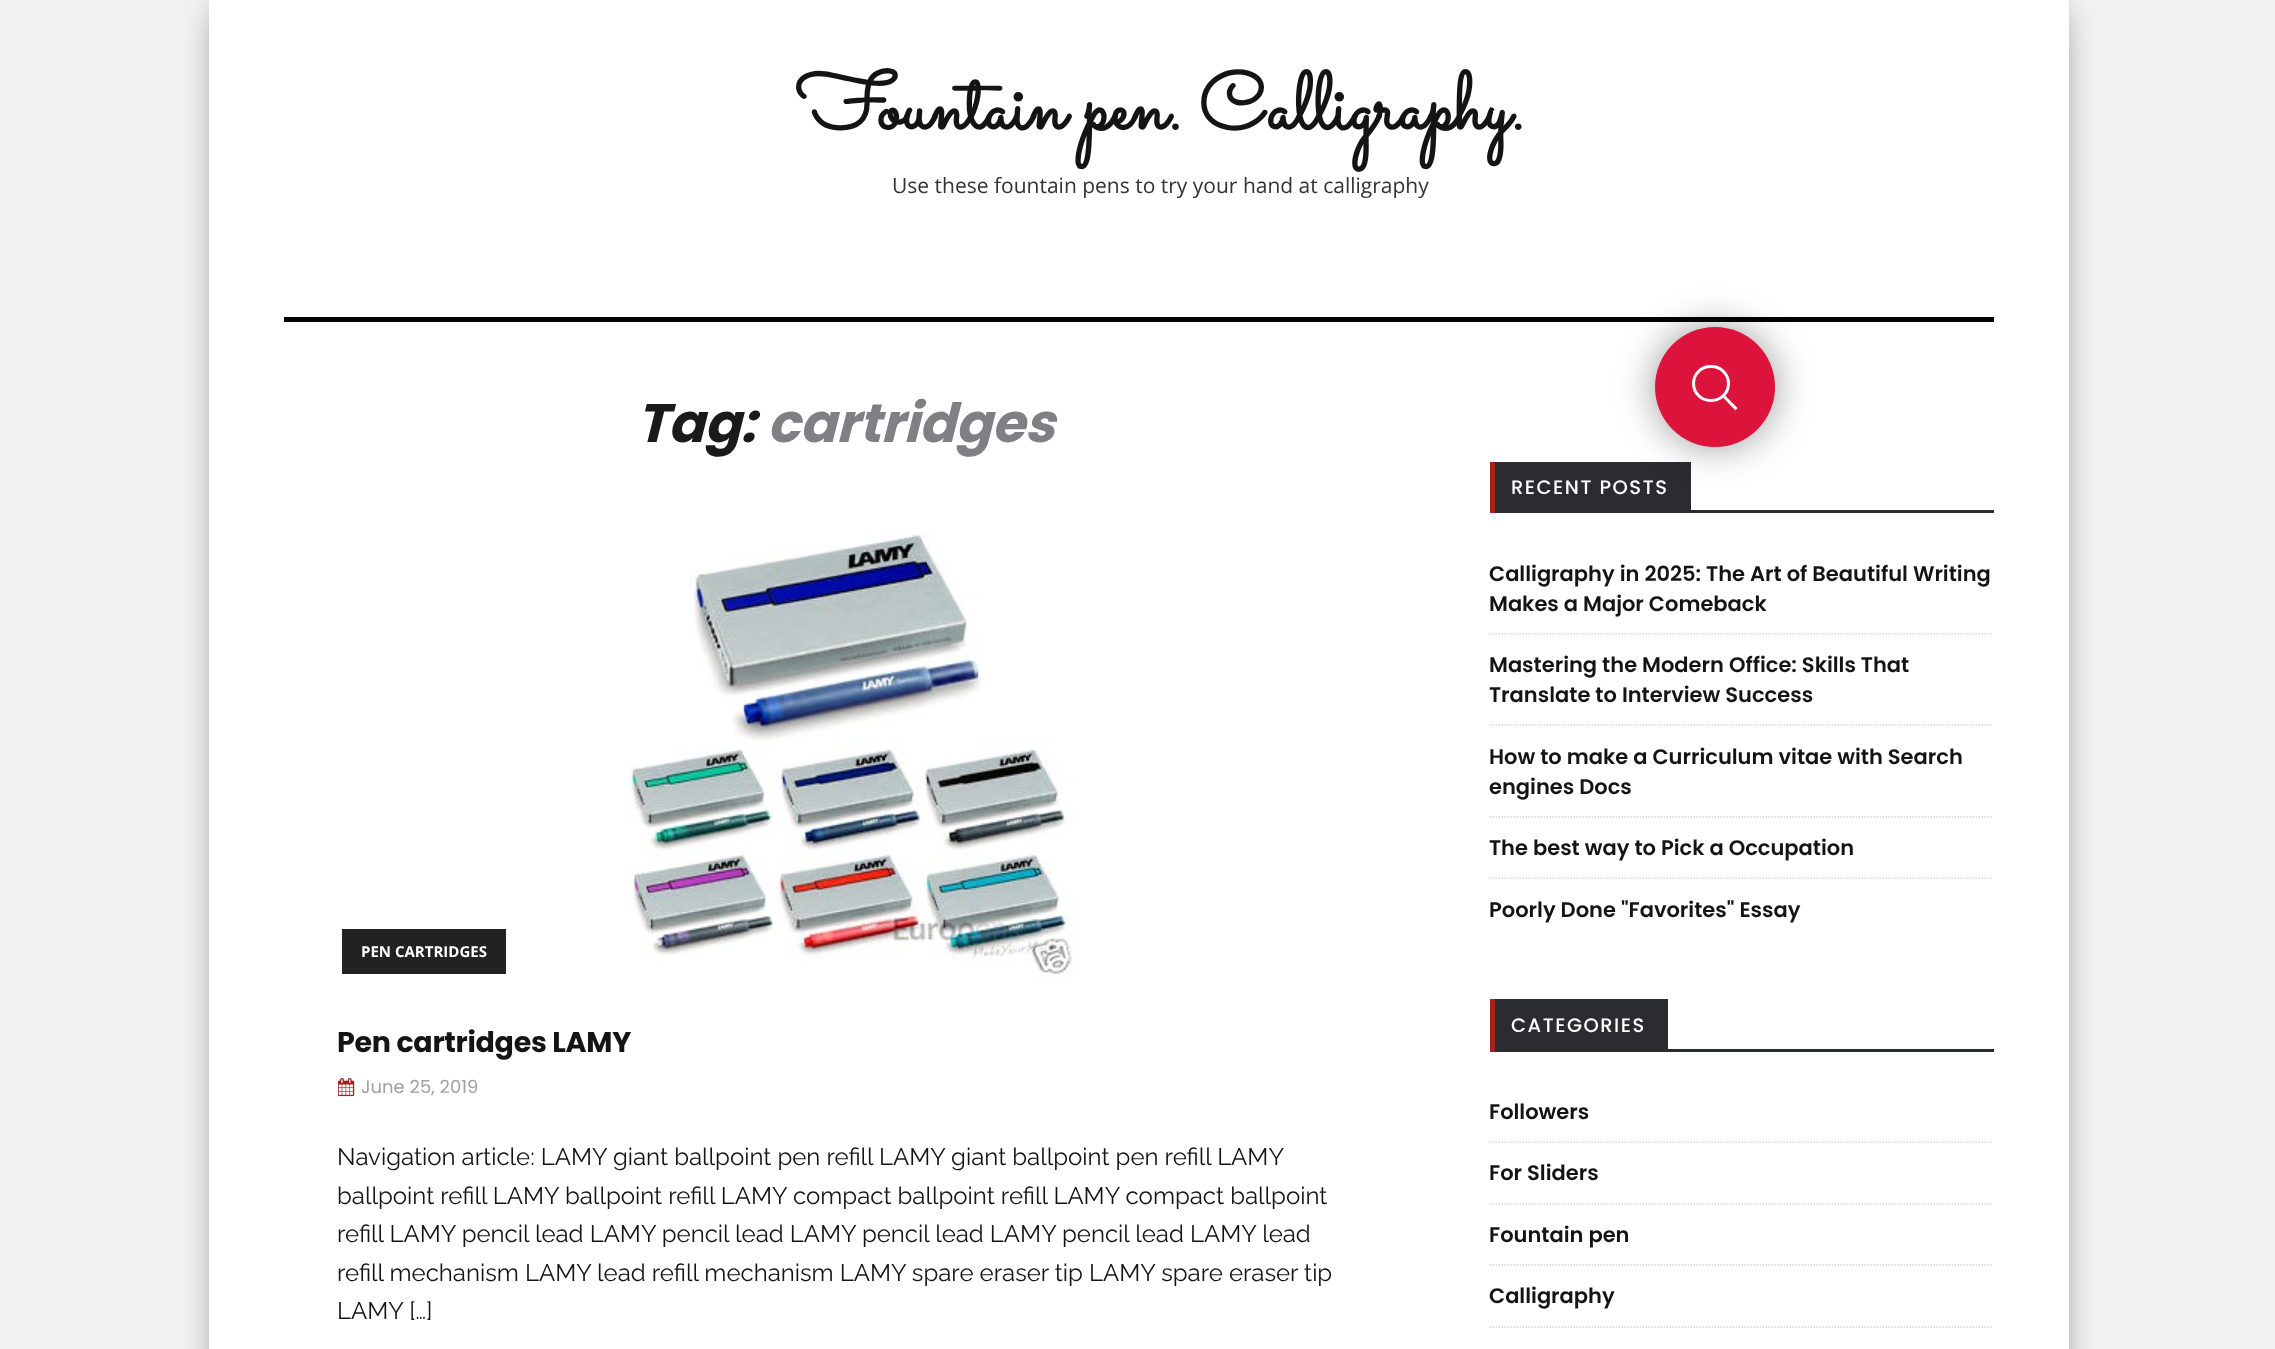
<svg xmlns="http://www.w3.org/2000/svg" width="2275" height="1349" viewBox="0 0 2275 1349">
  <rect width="100%" height="100%" fill="rgb(242,242,242)"/>
  <rect x="221" y="12" width="1836" height="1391" fill="rgb(97,97,97)" filter="blur(18px)"/>
  <rect x="209" y="0" width="1860" height="1349" fill="rgb(255,255,255)"/>
  <text x="796" y="129" font-family="Sacramento" font-size="81" font-weight="bold" letter-spacing="-0.3" fill="rgb(20,20,21)">Fountain pen. Calligraphy.</text>
  <text x="892" y="193" font-family="Open Sans" font-size="21" fill="rgb(51,51,51)">Use these fountain pens to try your hand at calligraphy</text>
  <rect x="284" y="317" width="1710" height="5" fill="rgb(2,2,2)"/>
  <text x="636" y="442" font-family="Poppins" font-size="54" font-weight="bold" font-style="italic" letter-spacing="-0.3" fill="rgb(26,26,26)">Tag:</text>
  <text x="767" y="442" font-family="Poppins" font-size="54" font-weight="bold" font-style="italic" letter-spacing="-0.3" fill="rgb(127,127,132)">cartridges</text>
  <rect x="342" y="929" width="164" height="45" fill="rgb(34,34,34)"/>
  <text x="361" y="957" font-family="Open Sans" font-size="15" font-weight="bold" fill="rgb(255,255,255)">PEN CARTRIDGES</text>
  <image x="624" y="534" width="450" height="444" href="pic1.png"/>
  <text x="337" y="1052" font-family="Poppins" font-size="28.5" font-weight="bold" letter-spacing="-0.3" fill="rgb(20,20,21)">Pen cartridges LAMY</text>
  <image x="338" y="1078" width="17" height="19" href="pic2.png"/>
  <text x="361" y="1093" font-family="Poppins" font-size="18" fill="rgb(159,159,167)">June 25, 2019</text>
  <g font-family="Raleway" font-size="24" fill="rgb(20,20,21)">
    <text>
      <tspan x="337" y="1165">Navigation article: LAMY giant ballpoint pen refill LAMY giant ballpoint pen refill LAMY</tspan>
      <tspan x="337" y="1204">ballpoint refill LAMY ballpoint refill LAMY compact ballpoint refill LAMY compact ballpoint</tspan>
      <tspan x="337" y="1242">refill LAMY pencil lead LAMY pencil lead LAMY pencil lead LAMY pencil lead LAMY lead</tspan>
      <tspan x="337" y="1281">refill mechanism LAMY lead refill mechanism LAMY spare eraser tip LAMY spare eraser tip</tspan>
      <tspan x="337" y="1319">LAMY […]</tspan>
    </text>
  </g>
  <rect x="1495" y="462" width="196" height="51" fill="rgb(43,44,47)"/>
  <rect x="1655" y="327" width="120" height="120" rx="60" fill="rgba(0,0,0,0.4)" filter="blur(19px)"/>
  <circle cx="1715" cy="387" r="60" fill="rgb(220,20,60)"/>
  <path d="M1725 395.5L1737.5 408L1735.5 410.5L1723 397.5Z" fill="rgb(255,255,255)"/>
  <rect x="1693.5" y="366.5" width="35" height="34" rx="17" fill="none" stroke="rgb(255,255,255)" stroke-width="3"/>
  <rect x="1691" y="510" width="303" height="3" fill="rgb(43,44,47)"/>
  <rect x="1490" y="462" width="5" height="51" fill="rgb(168,31,32)"/>
  <text x="1511" y="494" font-family="Poppins" font-size="19.5" font-weight="500" letter-spacing="1.5" fill="rgb(255,255,255)">RECENT POSTS</text>
  <path d="M1489.5 634H1993.5" fill="none" stroke="rgb(216,216,216)" stroke-width="1.5" stroke-dasharray="1.5 1.5"/>
  <g font-family="Poppins" font-size="21" font-weight="600" fill="rgb(20,20,21)">
    <text>
      <tspan x="1489" y="581">Calligraphy in 2025: The Art of Beautiful Writing</tspan>
      <tspan x="1489" y="611">Makes a Major Comeback</tspan>
    </text>
  </g>
  <path d="M1489.5 725H1993.5" fill="none" stroke="rgb(216,216,216)" stroke-width="1.5" stroke-dasharray="1.5 1.5"/>
  <g font-family="Poppins" font-size="21" font-weight="600" fill="rgb(20,20,21)">
    <text>
      <tspan x="1489" y="672">Mastering the Modern Office: Skills That</tspan>
      <tspan x="1489" y="702">Translate to Interview Success</tspan>
    </text>
  </g>
  <path d="M1489.5 817H1993.5" fill="none" stroke="rgb(216,216,216)" stroke-width="1.5" stroke-dasharray="1.5 1.5"/>
  <g font-family="Poppins" font-size="21" font-weight="600" fill="rgb(20,20,21)">
    <text>
      <tspan x="1489" y="764">How to make a Curriculum vitae with Search</tspan>
      <tspan x="1489" y="794">engines Docs</tspan>
    </text>
  </g>
  <path d="M1489.5 878H1993.5" fill="none" stroke="rgb(216,216,216)" stroke-width="1.5" stroke-dasharray="1.5 1.5"/>
  <g font-family="Poppins" font-size="21" font-weight="600" fill="rgb(20,20,21)">
    <text x="1489" y="855">The best way to Pick a Occupation</text>
    <text x="1489" y="917">Poorly Done "Favorites" Essay</text>
  </g>
  <rect x="1668" y="1049" width="326" height="3" fill="rgb(43,44,47)"/>
  <rect x="1495" y="999" width="173" height="53" fill="rgb(43,44,47)"/>
  <rect x="1490" y="999" width="5" height="53" fill="rgb(168,31,32)"/>
  <text x="1511" y="1032" font-family="Poppins" font-size="19.5" font-weight="500" letter-spacing="1.5" fill="rgb(255,255,255)">CATEGORIES</text>
  <path d="M1489.5 1142H1993.5" fill="none" stroke="rgb(216,216,216)" stroke-width="1.5" stroke-dasharray="1.5 1.5"/>
  <text x="1489" y="1119" font-family="Poppins" font-size="21" font-weight="600" fill="rgb(20,20,21)">Followers</text>
  <path d="M1489.5 1204H1993.5" fill="none" stroke="rgb(216,216,216)" stroke-width="1.5" stroke-dasharray="1.5 1.5"/>
  <text x="1489" y="1180" font-family="Poppins" font-size="21" font-weight="600" fill="rgb(20,20,21)">For Sliders</text>
  <path d="M1489.5 1265H1993.5" fill="none" stroke="rgb(216,216,216)" stroke-width="1.5" stroke-dasharray="1.5 1.5"/>
  <text x="1489" y="1242" font-family="Poppins" font-size="21" font-weight="600" fill="rgb(20,20,21)">Fountain pen</text>
  <path d="M1489.5 1327H1993.5" fill="none" stroke="rgb(216,216,216)" stroke-width="1.5" stroke-dasharray="1.5 1.5"/>
  <text x="1489" y="1303" font-family="Poppins" font-size="21" font-weight="600" fill="rgb(20,20,21)">Calligraphy</text>
</svg>
